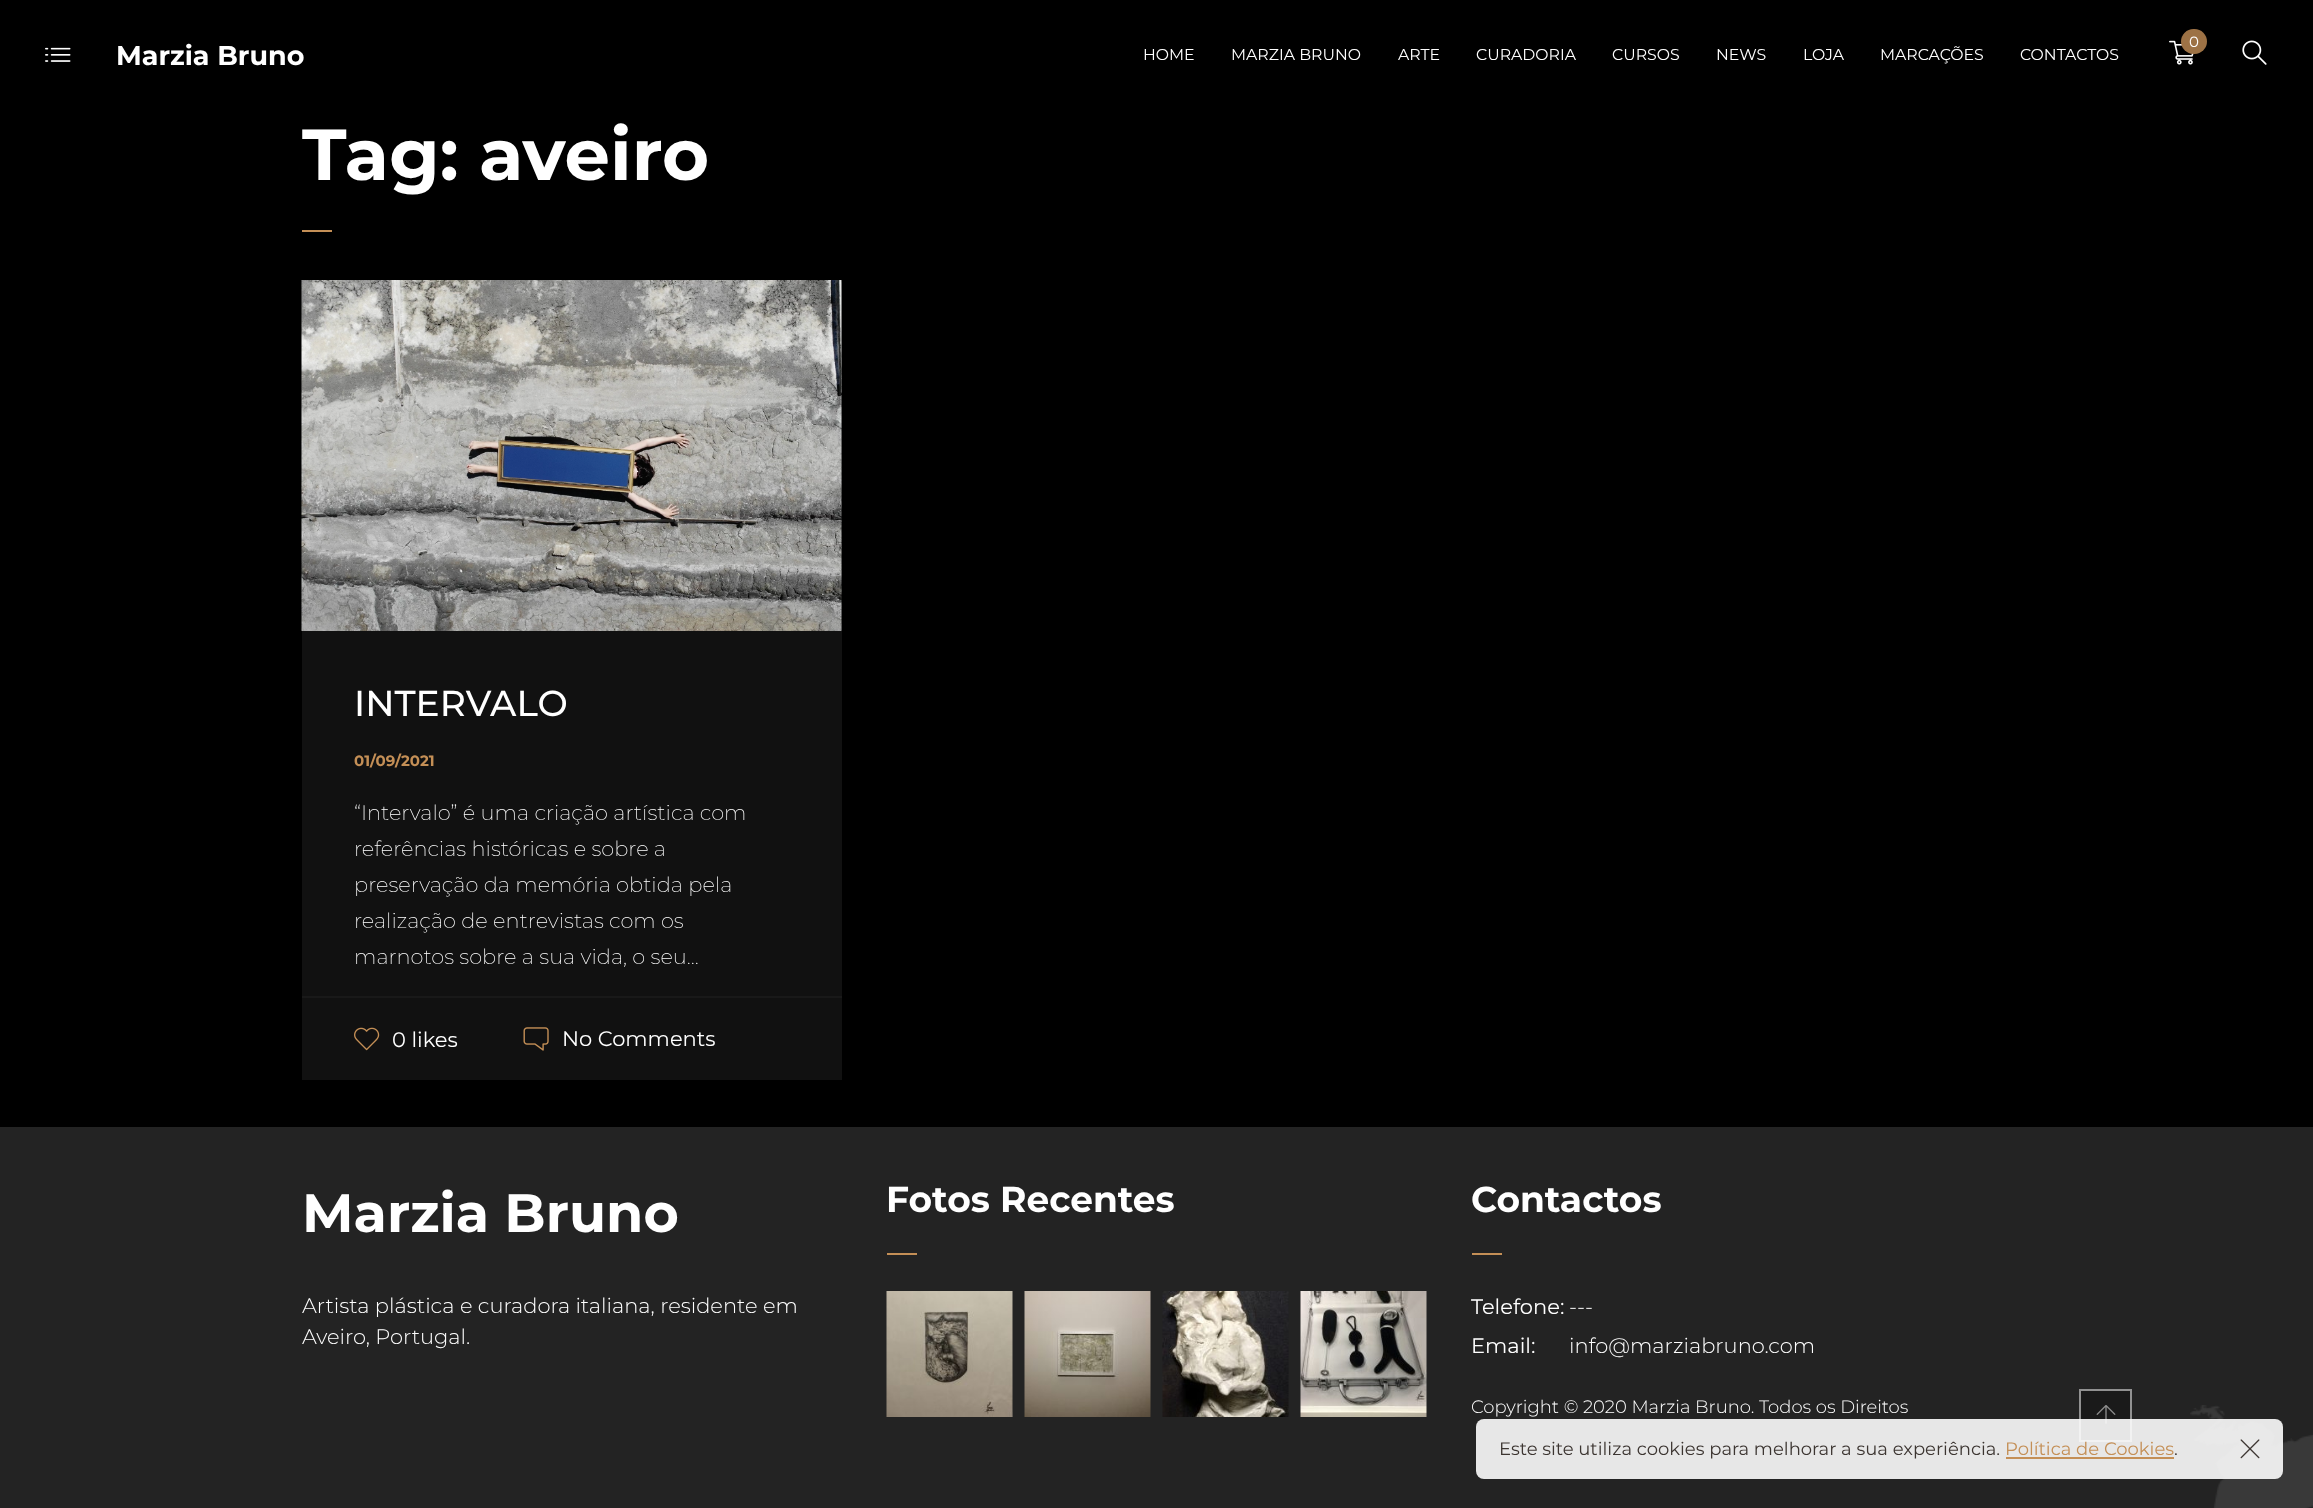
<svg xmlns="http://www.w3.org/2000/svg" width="2313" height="1508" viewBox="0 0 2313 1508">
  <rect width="100%" height="100%" fill="rgb(0,0,0)"/>
  <image x="45" y="47" width="26" height="15" href="pic1.png"/>
  <text x="116" y="65" font-family="Montserrat" font-size="27" font-weight="bold" fill="rgb(255,255,255)">Marzia Bruno</text>
  <g font-family="Montserrat" font-size="15.75" fill="rgb(255,255,255)">
    <text x="1143" y="60">HOME</text>
    <text x="1231" y="60">MARZIA BRUNO</text>
    <text x="1398" y="60">ARTE</text>
    <text x="1476" y="60">CURADORIA</text>
    <text x="1612" y="60">CURSOS</text>
    <text x="1716" y="60">NEWS</text>
    <text x="1803" y="60">LOJA</text>
    <text x="1880" y="60">MARCAÇÕES</text>
    <text x="2020" y="60">CONTACTOS</text>
  </g>
  <image x="2169" y="40" width="25" height="25" href="pic2.png"/>
  <rect x="2181" y="29" width="26" height="25" rx="12.5" fill="rgb(157,114,69)"/>
  <text x="2189" y="47" font-family="Montserrat" font-size="15" fill="rgb(255,255,255)">0</text>
  <image x="2242" y="40" width="25" height="25" href="pic3.png"/>
  <text x="302" y="180" font-family="Montserrat" font-size="72" font-weight="bold" fill="rgb(255,255,255)">Tag: aveiro</text>
  <rect x="302" y="230" width="30" height="2" fill="rgb(196,143,86)"/>
  <rect x="302" y="281" width="540" height="799" fill="rgb(17,17,17)"/>
  <image x="301" y="280" width="541" height="351" href="pic4.png"/>
  <text x="354" y="716" font-family="Montserrat" font-size="36" font-weight="500" fill="rgb(255,255,255)">INTERVALO</text>
  <text x="354" y="766" font-family="Montserrat" font-size="15" font-weight="bold" fill="rgb(196,143,86)">01/09/2021</text>
  <g font-family="Montserrat" font-size="21" font-weight="200" fill="rgb(255,255,255)">
    <text>
      <tspan x="354" y="820">“Intervalo” é uma criação artística com</tspan>
      <tspan x="354" y="856">referências históricas e sobre a</tspan>
      <tspan x="354" y="892">preservação da memória obtida pela</tspan>
      <tspan x="354" y="928">realização de entrevistas com os</tspan>
      <tspan x="354" y="964">marnotos sobre a sua vida, o seu...</tspan>
    </text>
  </g>
  <rect x="302" y="996" width="540" height="2" fill="rgb(25,25,25)"/>
  <image x="354" y="1027" width="26" height="24" href="pic5.png"/>
  <text x="392" y="1047" font-family="Montserrat" font-size="21" fill="rgb(255,255,255)">0 likes</text>
  <image x="523" y="1027" width="26" height="24" href="pic6.png"/>
  <text x="562" y="1046" font-family="Montserrat" font-size="21" fill="rgb(255,255,255)">No Comments</text>
  <rect x="0" y="1127" width="2313" height="381" fill="rgb(35,35,35)"/>
  <image x="2190" y="1405" width="123" height="103" href="pic7.png"/>
  <text x="302" y="1232" font-family="Montserrat" font-size="54" font-weight="bold" fill="rgb(255,255,255)">Marzia Bruno</text>
  <g font-family="Montserrat" font-size="21" font-weight="300" fill="rgb(255,255,255)">
    <text>
      <tspan x="302" y="1313">Artista plástica e curadora italiana, residente em</tspan>
      <tspan x="302" y="1344">Aveiro, Portugal.</tspan>
    </text>
  </g>
  <text x="886" y="1212" font-family="Montserrat" font-size="36" font-weight="bold" fill="rgb(255,255,255)">Fotos Recentes</text>
  <rect x="887" y="1253" width="30" height="2" fill="rgb(196,143,86)"/>
  <image x="886" y="1291" width="127" height="126" href="pic8.png"/>
  <image x="1024" y="1291" width="127" height="126" href="pic9.png"/>
  <image x="1162" y="1291" width="127" height="126" href="pic10.png"/>
  <image x="1300" y="1291" width="127" height="126" href="pic11.png"/>
  <text x="1471" y="1212" font-family="Montserrat" font-size="36" font-weight="bold" fill="rgb(255,255,255)">Contactos</text>
  <rect x="1472" y="1253" width="30" height="2" fill="rgb(196,143,86)"/>
  <text x="1471" y="1314" font-family="Montserrat" font-size="21" fill="rgb(255,255,255)">Telefone:</text>
  <text x="1569" y="1314" font-family="Montserrat" font-size="21" font-weight="300" fill="rgb(255,255,255)">---</text>
  <text x="1471" y="1353" font-family="Montserrat" font-size="21" fill="rgb(255,255,255)">Email:</text>
  <text x="1569" y="1353" font-family="Montserrat" font-size="21" font-weight="300" fill="rgb(255,255,255)">info@marziabruno.com</text>
  <text x="1471" y="1413" font-family="Montserrat" font-size="18" font-weight="300" fill="rgb(255,255,255)">Copyright © 2020 Marzia Bruno. Todos os Direitos</text>
  <rect x="2080" y="1390" width="51" height="51" fill="rgb(26,26,26)" stroke="rgb(145,145,145)" stroke-width="2"/>
  <image x="2096" y="1405" width="20" height="19" href="pic12.png"/>
  <rect x="1476" y="1419" width="807" height="60" rx="8" fill="rgba(253,253,253,0.9)"/>
  <text x="1499" y="1455" font-family="Montserrat" font-size="18" fill="rgb(60,53,49)">Este site utiliza cookies para melhorar a sua experiência.</text>
  <text x="2005" y="1455" font-family="Montserrat" font-size="18" fill="rgb(196,143,86)">Política de Cookies</text>
  <rect x="2006" y="1457" width="168" height="2" fill="rgb(196,143,86)"/>
  <text x="2174" y="1455" font-family="Montserrat" font-size="18" fill="rgb(60,53,49)">.</text>
  <image x="2240" y="1439" width="20" height="20" href="pic13.png"/>
</svg>
